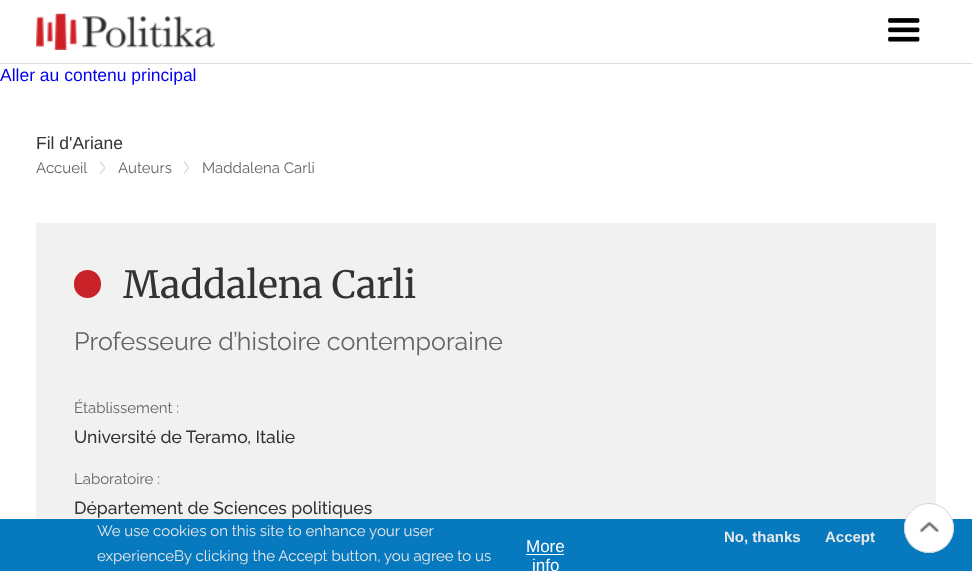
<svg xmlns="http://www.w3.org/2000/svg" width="972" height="571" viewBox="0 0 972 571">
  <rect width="100%" height="100%" fill="rgb(255,255,255)"/>
  <text x="0" y="81" font-family="Liberation Sans" font-size="17.5" fill="rgb(0,0,238)">Aller au contenu principal</text>
  <rect x="0" y="63" width="972" height="1" fill="rgb(221,221,221)"/>
  <image x="36" y="13" width="179" height="37" href="pic1.png"/>
  <image x="888" y="18" width="32" height="24" href="pic2.png"/>
  <text x="36" y="149" font-family="Liberation Sans" font-size="17.5" fill="rgb(51,51,51)">Fil d'Ariane</text>
  <text x="36" y="173" font-family="Raleway" font-size="15" fill="rgb(100,100,100)">Accueil</text>
  <image x="100" y="161" width="5" height="13" href="pic3.png"/>
  <text x="118" y="173" font-family="Raleway" font-size="15" fill="rgb(100,100,100)">Auteurs</text>
  <image x="183" y="161" width="6" height="13" href="pic4.png"/>
  <text x="202" y="173" font-family="Raleway" font-size="15" fill="rgb(100,100,100)">Maddalena Carli</text>
  <rect x="36" y="223" width="900" height="296" fill="rgb(241,241,241)"/>
  <rect x="74" y="270" width="27" height="28" rx="13.5" fill="rgb(200,33,39)"/>
  <text x="123" y="298" font-family="Merriweather" font-size="37.5" fill="rgb(51,51,51)">Maddalena Carli</text>
  <text x="74" y="350" font-family="Raleway" font-size="25" fill="rgb(100,100,100)">Professeure d’histoire contemporaine</text>
  <text x="74" y="413" font-family="Raleway" font-size="15" fill="rgb(100,100,100)">Établissement :</text>
  <text x="74" y="443" font-family="Raleway" font-size="17.5" font-weight="500" fill="rgb(51,51,51)">Université de Teramo, Italie</text>
  <text x="74" y="484" font-family="Raleway" font-size="15" fill="rgb(100,100,100)">Laboratoire :</text>
  <text x="74" y="514" font-family="Raleway" font-size="17.5" font-weight="500" fill="rgb(51,51,51)">Département de Sciences politiques</text>
  <rect x="0" y="519" width="972" height="52" fill="rgb(7,121,191)"/>
  <circle cx="929" cy="528" r="25" fill="rgb(255,255,255)"/>
  <image x="919" y="521" width="20" height="12" href="pic5.png"/>
  <circle cx="929" cy="528" r="24.5" fill="none" stroke="rgb(212,212,212)"/>
  <g font-family="Raleway" font-size="15" fill="rgb(232,232,232)">
    <text>
      <tspan x="97" y="536">We use cookies on this site to enhance your user</tspan>
      <tspan x="97" y="561">experienceBy clicking the Accept button, you agree to us</tspan>
    </text>
  </g>
  <text x="526" y="552" font-family="Liberation Sans" font-size="17" fill="rgb(255,255,255)">More</text>
  <rect x="526" y="554" width="38" height="1" fill="rgb(255,255,255)"/>
  <text x="532" y="571" font-family="Liberation Sans" font-size="17" fill="rgb(255,255,255)">info</text>
  <g font-family="Liberation Sans" font-size="15" font-weight="bold" fill="rgb(232,232,232)">
    <text x="724" y="542">No, thanks</text>
    <text x="825" y="542">Accept</text>
  </g>
</svg>
